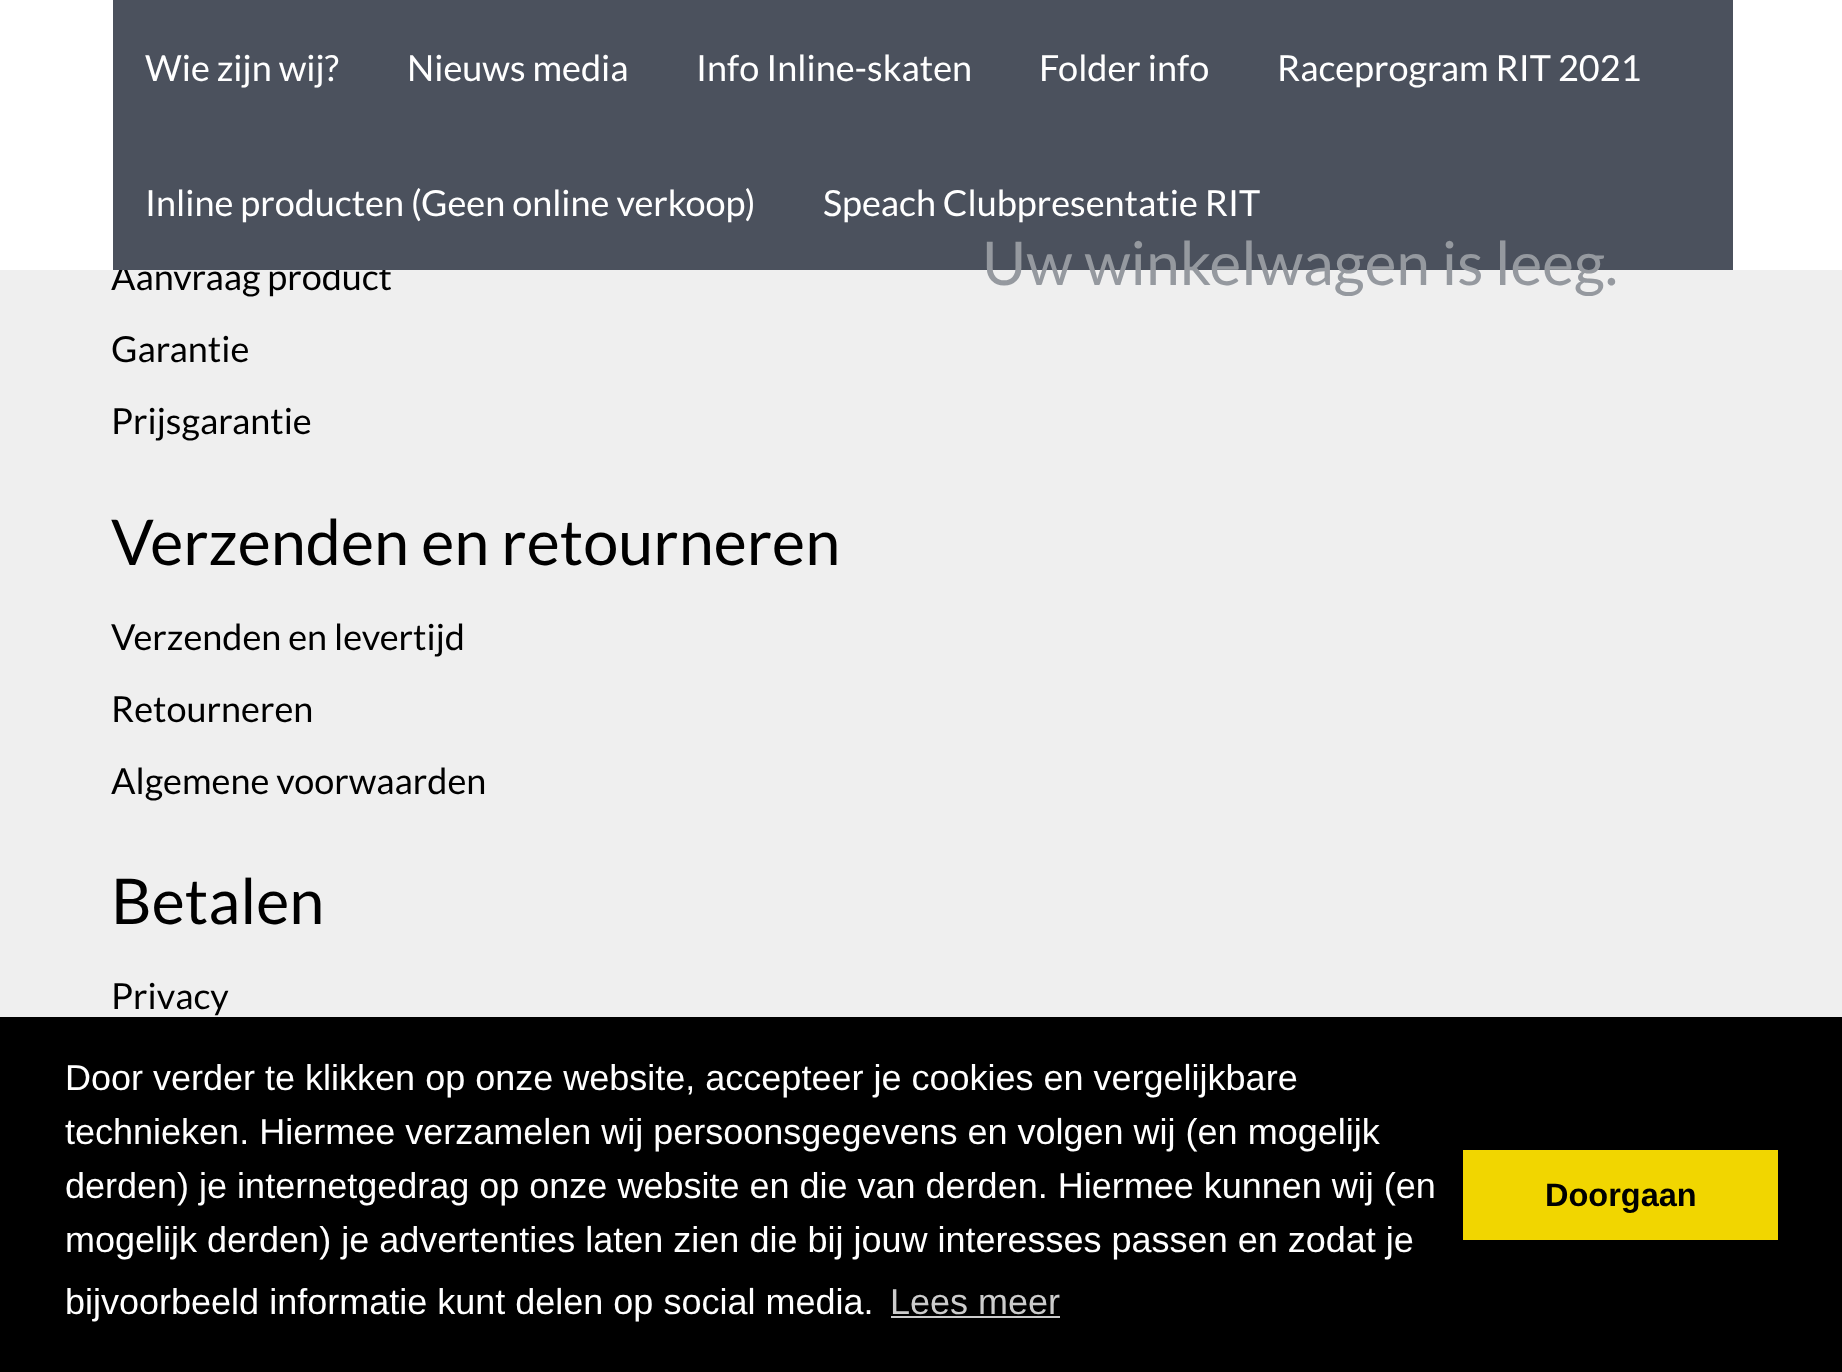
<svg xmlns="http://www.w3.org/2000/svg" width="1842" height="1372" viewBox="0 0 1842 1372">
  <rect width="100%" height="100%" fill="rgb(239,239,239)"/>
  <text x="111" y="290" font-family="Lato" font-size="36" fill="rgb(0,0,0)">Aanvraag product</text>
  <rect x="0" y="0" width="1842" height="270" fill="rgb(255,255,255)"/>
  <rect x="113" y="0" width="1620" height="270" fill="rgb(75,81,93)"/>
  <g font-family="Lato" font-size="36" fill="rgb(255,255,255)">
    <text x="145" y="81">Wie zijn wij?</text>
    <text x="407" y="81">Nieuws media</text>
    <text x="696" y="81">Info Inline-skaten</text>
    <text x="1039" y="81">Folder info</text>
    <text x="1277" y="81">Raceprogram RIT 2021</text>
    <text x="145" y="216">Inline producten (Geen online verkoop)</text>
    <text x="823" y="216">Speach Clubpresentatie RIT</text>
  </g>
  <text x="982" y="285" font-family="Lato" font-size="60.5" fill="rgb(149,153,159)">Uw winkelwagen is leeg.</text>
  <g font-family="Lato" font-size="36" fill="rgb(0,0,0)">
    <text x="111" y="362">Garantie</text>
    <text x="111" y="434">Prijsgarantie</text>
  </g>
  <text x="111" y="565" font-family="Lato" font-size="63" fill="rgb(0,0,0)">Verzenden en retourneren</text>
  <g font-family="Lato" font-size="36" fill="rgb(0,0,0)">
    <text x="111" y="650">Verzenden en levertijd</text>
    <text x="111" y="722">Retourneren</text>
    <text x="111" y="794">Algemene voorwaarden</text>
  </g>
  <text x="111" y="924" font-family="Lato" font-size="63" fill="rgb(0,0,0)">Betalen</text>
  <text x="111" y="1009" font-family="Lato" font-size="36" fill="rgb(0,0,0)">Privacy</text>
  <rect x="0" y="1017" width="1842" height="355" fill="rgb(0,0,0)"/>
  <g font-family="Liberation Sans" font-size="36" fill="rgb(255,255,255)">
    <text>
      <tspan x="65" y="1090">Door verder te klikken op onze website, accepteer je cookies en vergelijkbare</tspan>
      <tspan x="65" y="1144">technieken. Hiermee verzamelen wij persoonsgegevens en volgen wij (en mogelijk</tspan>
      <tspan x="65" y="1198">derden) je internetgedrag op onze website en die van derden. Hiermee kunnen wij (en</tspan>
      <tspan x="65" y="1252">mogelijk derden) je advertenties laten zien die bij jouw interesses passen en zodat je</tspan>
      <tspan x="65" y="1314">bijvoorbeeld informatie kunt delen op social media.</tspan>
    </text>
  </g>
  <text x="890" y="1314" font-family="Liberation Sans" font-size="36" fill="rgb(204,204,204)">Lees meer</text>
  <rect x="891" y="1316" width="169" height="2" fill="rgb(204,204,204)"/>
  <rect x="1463" y="1150" width="315" height="90" fill="rgb(241,214,0)"/>
  <text x="1545" y="1206" font-family="Liberation Sans" font-size="32.5" font-weight="bold" fill="rgb(0,0,0)">Doorgaan</text>
</svg>
